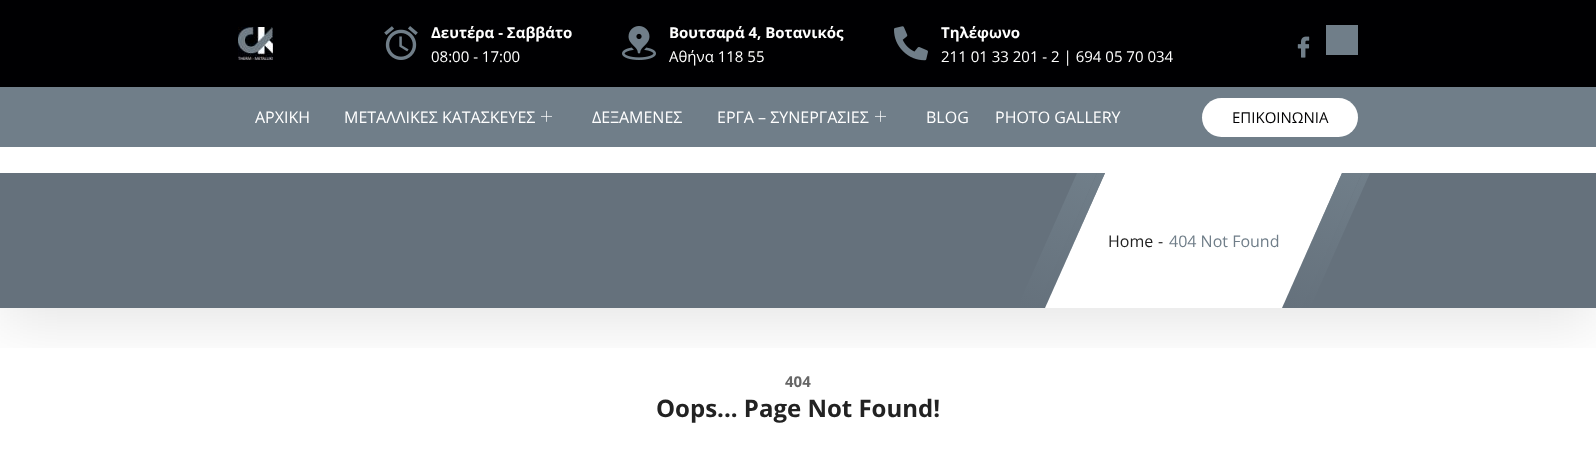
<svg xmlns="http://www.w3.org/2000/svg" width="1596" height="459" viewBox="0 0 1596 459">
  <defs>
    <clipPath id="clip1"><rect x="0" y="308" width="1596" height="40"/></clipPath>
    <linearGradient id="g1" gradientUnits="userSpaceOnUse" x1="1087" y1="173" x2="1027" y2="308"><stop offset="0" stop-color="rgb(112,126,137)"/><stop offset="1" stop-color="rgb(101,113,124)"/></linearGradient>
    <linearGradient id="g2" gradientUnits="userSpaceOnUse" x1="1101" y1="173" x2="1041" y2="308"><stop offset="0" stop-color="rgb(112,126,137)"/><stop offset="1" stop-color="rgb(112,126,137)" stop-opacity="0"/></linearGradient>
    <linearGradient id="g3" gradientUnits="userSpaceOnUse" x1="1352" y1="173" x2="1292" y2="308"><stop offset="0" stop-color="rgb(112,126,137)"/><stop offset="1" stop-color="rgb(112,126,137)" stop-opacity="0"/></linearGradient>
    <linearGradient id="g4" gradientUnits="userSpaceOnUse" x1="1366" y1="173" x2="1306" y2="308"><stop offset="0" stop-color="rgb(112,126,137)"/><stop offset="1" stop-color="rgb(112,126,137)" stop-opacity="0"/></linearGradient>
  </defs>
  <rect width="100%" height="100%" fill="rgb(255,255,255)"/>
  <g clip-path="url(#clip1)">
    <rect x="0" y="162" width="1596" height="161" fill="rgba(0,0,0,0.1)" filter="blur(30px)"/>
  </g>
  <rect x="0" y="0" width="1596" height="87" fill="rgb(0,0,2)"/>
  <image x="238" y="27" width="35" height="33" href="pic1.png"/>
  <image x="384" y="26" width="34" height="34" href="pic2.png"/>
  <text x="431" y="38" font-family="Open Sans" font-size="15" font-weight="bold" fill="rgb(255,255,255)">Δευτέρα - Σαββάτο</text>
  <text x="431" y="62" font-family="Open Sans" font-size="15" fill="rgb(255,255,255)">08:00 - 17:00</text>
  <image x="622" y="26" width="34" height="34" href="pic3.png"/>
  <text x="669" y="38" font-family="Open Sans" font-size="15" font-weight="bold" fill="rgb(255,255,255)">Βουτσαρά 4, Βοτανικός</text>
  <text x="669" y="62" font-family="Open Sans" font-size="15" fill="rgb(255,255,255)">Αθήνα 118 55</text>
  <image x="894" y="26" width="34" height="35" href="pic4.png"/>
  <text x="941" y="38" font-family="Open Sans" font-size="15" font-weight="bold" fill="rgb(255,255,255)">Τηλέφωνο</text>
  <text x="941" y="62" font-family="Open Sans" font-size="15" fill="rgb(255,255,255)">211 01 33 201 - 2 | 694 05 70 034</text>
  <image x="1297" y="36" width="13" height="22" href="pic5.png"/>
  <rect x="1326" y="25" width="32" height="30" fill="rgb(112,126,137)"/>
  <rect x="0" y="87" width="1596" height="60" fill="rgb(112,126,137)"/>
  <g font-family="Open Sans" font-size="16" fill="rgb(255,255,255)">
    <text x="255" y="123">ΑΡΧΙΚΗ</text>
    <text x="344" y="123">ΜΕΤΑΛΛΙΚΕΣ ΚΑΤΑΣΚΕΥΕΣ</text>
  </g>
  <image x="541" y="110" width="11" height="12" href="pic6.png"/>
  <g font-family="Open Sans" font-size="16" fill="rgb(255,255,255)">
    <text x="592" y="123">ΔΕΞΑΜΕΝΕΣ</text>
    <text x="717" y="123">ΕΡΓΑ – ΣΥΝΕΡΓΑΣΙΕΣ</text>
  </g>
  <image x="875" y="110" width="11" height="12" href="pic6.png"/>
  <g font-family="Open Sans" font-size="16" fill="rgb(255,255,255)">
    <text x="926" y="123">BLOG</text>
    <text x="995" y="123">PHOTO GALLERY</text>
  </g>
  <rect x="1202" y="98" width="156" height="39" rx="19.5" fill="rgb(255,255,255)"/>
  <text x="1232" y="123" font-family="Open Sans" font-size="15" fill="rgb(0,0,2)">ΕΠΙΚΟΙΝΩΝΙΑ</text>
  <rect x="0" y="173" width="1596" height="135" fill="rgb(101,113,124)"/>
  <path d="M1105 173H1342L1282 308H1045Z" fill="rgb(255,255,255)"/>
  <path d="M1077 173H1097L1037 308H1017Z" fill="url(#g1)"/>
  <path d="M1097 173H1105L1045 308H1037Z" fill="url(#g2)"/>
  <g font-family="Open Sans" font-size="16" fill="rgb(34,34,34)">
    <text x="1108" y="247">Home</text>
    <text x="1158" y="247">-</text>
  </g>
  <text x="1169" y="247" font-family="Open Sans" font-size="16" fill="rgb(112,126,137)">404 Not Found</text>
  <path d="M1342 173H1362L1302 308H1282Z" fill="url(#g3)"/>
  <path d="M1362 173H1370L1310 308H1302Z" fill="url(#g4)"/>
  <text x="785" y="387" font-family="Open Sans" font-size="15" font-weight="bold" fill="rgb(102,102,102)">404</text>
  <text x="656" y="417" font-family="Open Sans" font-size="24" font-weight="bold" fill="rgb(34,34,34)">Oops... Page Not Found!</text>
</svg>
